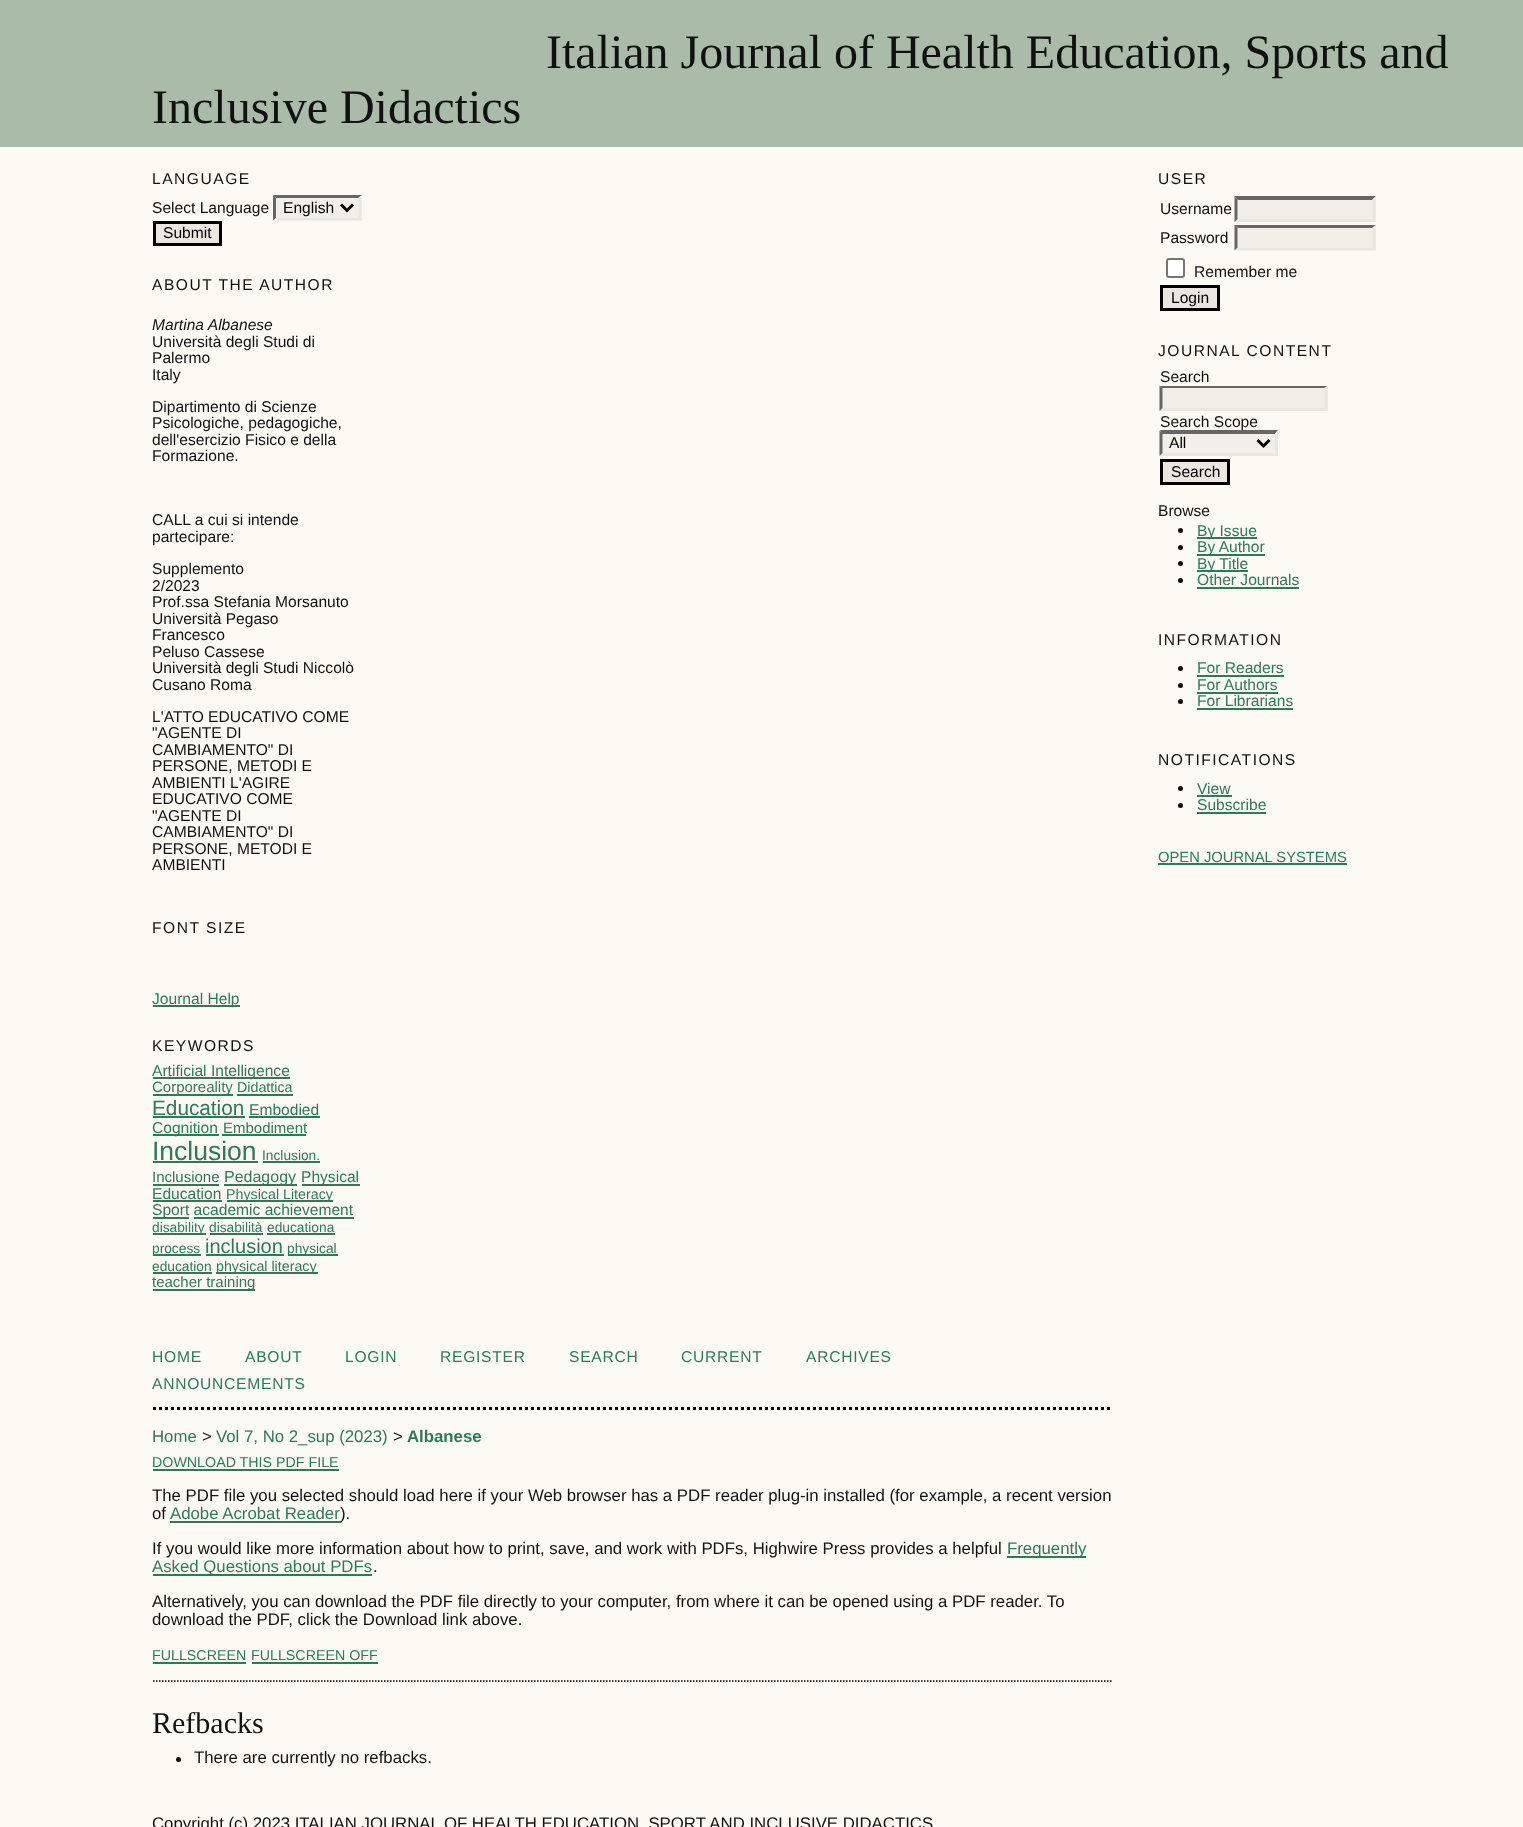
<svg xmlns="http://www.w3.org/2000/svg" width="1523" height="1827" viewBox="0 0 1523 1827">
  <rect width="100%" height="100%" fill="rgb(251,251,243)"/>
  <rect x="0" y="0" width="1523" height="147" fill="rgb(170,187,170)"/>
  <g font-family="Liberation Serif" font-size="48" fill="rgb(17,17,17)">
    <text x="546" y="68">Italian Journal of Health Education, Sports and</text>
    <text x="152" y="123">Inclusive Didactics</text>
  </g>
  <text x="152" y="184" font-family="Liberation Sans" font-size="15.6" letter-spacing="1.5" fill="rgb(17,17,17)">LANGUAGE</text>
  <text x="152" y="213" font-family="Liberation Sans" font-size="15.6" fill="rgb(17,17,17)">Select Language</text>
  <rect x="273" y="195" width="89" height="26" fill="rgb(240,240,232)"/>
  <path d="M273 195H362L358 198H276Z" fill="rgb(102,102,102)"/>
  <path d="M361.5 195V220.5L358.5 217.5V198Z" fill="rgb(232,232,225)"/>
  <path d="M362 220H273L276 218H358Z" fill="rgb(232,232,225)"/>
  <path d="M273 220.5V195L276 198V217.5Z" fill="rgb(102,102,102)"/>
  <path d="M341 204.5L347 210.5L353 204.5" fill="none" stroke="rgb(0,0,0)" stroke-width="3"/>
  <text x="283" y="213" font-family="Liberation Sans" font-size="15.6" fill="rgb(0,0,0)">English</text>
  <rect x="154.5" y="222.5" width="66" height="22" fill="rgb(232,232,225)" stroke="rgb(0,0,0)" stroke-width="3"/>
  <text x="163" y="238" font-family="Liberation Sans" font-size="15.6" fill="rgb(0,0,0)">Submit</text>
  <text x="152" y="290" font-family="Liberation Sans" font-size="15.6" letter-spacing="1.5" fill="rgb(17,17,17)">ABOUT THE AUTHOR</text>
  <text x="152" y="330" font-family="Liberation Sans" font-size="15.6" font-style="italic" fill="rgb(17,17,17)">Martina Albanese</text>
  <g font-family="Liberation Sans" font-size="15.6" fill="rgb(17,17,17)">
    <text>
      <tspan x="152" y="347">Università degli Studi di</tspan>
      <tspan x="152" y="363">Palermo</tspan>
      <tspan x="152" y="380">Italy</tspan>
    </text>
    <text>
      <tspan x="152" y="412">Dipartimento di Scienze</tspan>
      <tspan x="152" y="428">Psicologiche, pedagogiche,</tspan>
      <tspan x="152" y="445">dell'esercizio Fisico e della</tspan>
      <tspan x="152" y="461">Formazione.</tspan>
    </text>
    <text>
      <tspan x="152" y="525">CALL a cui si intende</tspan>
      <tspan x="152" y="542">partecipare:</tspan>
    </text>
    <text>
      <tspan x="152" y="574">Supplemento</tspan>
      <tspan x="152" y="591">2/2023</tspan>
      <tspan x="152" y="607">Prof.ssa Stefania Morsanuto</tspan>
      <tspan x="152" y="624">Università Pegaso</tspan>
      <tspan x="152" y="640">Francesco</tspan>
      <tspan x="152" y="657">Peluso Cassese</tspan>
      <tspan x="152" y="673">Università degli Studi Niccolò</tspan>
      <tspan x="152" y="690">Cusano Roma</tspan>
    </text>
    <text>
      <tspan x="152" y="722">L'ATTO EDUCATIVO COME</tspan>
      <tspan x="152" y="738">"AGENTE DI</tspan>
      <tspan x="152" y="755">CAMBIAMENTO" DI</tspan>
      <tspan x="152" y="771">PERSONE, METODI E</tspan>
      <tspan x="152" y="788">AMBIENTI L'AGIRE</tspan>
      <tspan x="152" y="804">EDUCATIVO COME</tspan>
      <tspan x="152" y="821">"AGENTE DI</tspan>
      <tspan x="152" y="837">CAMBIAMENTO" DI</tspan>
      <tspan x="152" y="854">PERSONE, METODI E</tspan>
      <tspan x="152" y="870">AMBIENTI</tspan>
    </text>
  </g>
  <text x="152" y="933" font-family="Liberation Sans" font-size="15.6" letter-spacing="1.5" fill="rgb(17,17,17)">FONT SIZE</text>
  <rect x="153" y="1005" width="87" height="2" fill="rgb(51,119,85)"/>
  <text x="152" y="1004" font-family="Liberation Sans" font-size="15.6" fill="rgb(51,119,85)">Journal Help</text>
  <text x="152" y="1051" font-family="Liberation Sans" font-size="15.6" letter-spacing="1.5" fill="rgb(17,17,17)">KEYWORDS</text>
  <rect x="153" y="1077" width="137" height="2" fill="rgb(51,119,85)"/>
  <text x="152" y="1076" font-family="Liberation Sans" font-size="15.6" fill="rgb(51,119,85)">Artificial Intelligence</text>
  <rect x="153" y="1094" width="80" height="2" fill="rgb(51,119,85)"/>
  <text x="152" y="1092" font-family="Liberation Sans" font-size="15" fill="rgb(51,119,85)">Corporeality</text>
  <text x="237" y="1092" font-family="Liberation Sans" font-size="14.25" fill="rgb(51,119,85)">Didattica</text>
  <rect x="237" y="1094" width="56" height="2" fill="rgb(51,119,85)"/>
  <text x="152" y="1115" font-family="Liberation Sans" font-size="20.75" fill="rgb(51,119,85)">Education</text>
  <rect x="153" y="1116" width="92" height="2" fill="rgb(51,119,85)"/>
  <text x="249" y="1115" font-family="Liberation Sans" font-size="15.6" fill="rgb(51,119,85)">Embodied</text>
  <rect x="249" y="1116" width="71" height="2" fill="rgb(51,119,85)"/>
  <rect x="153" y="1134" width="66" height="2" fill="rgb(51,119,85)"/>
  <text x="152" y="1133" font-family="Liberation Sans" font-size="15.6" fill="rgb(51,119,85)">Cognition</text>
  <text x="223" y="1133" font-family="Liberation Sans" font-size="15" fill="rgb(51,119,85)">Embodiment</text>
  <rect x="222" y="1134" width="84" height="2" fill="rgb(51,119,85)"/>
  <text x="152" y="1160" font-family="Liberation Sans" font-size="26.5" fill="rgb(51,119,85)">Inclusion</text>
  <rect x="153" y="1161" width="105" height="2" fill="rgb(51,119,85)"/>
  <text x="262" y="1160" font-family="Liberation Sans" font-size="13.75" fill="rgb(51,119,85)">Inclusion.</text>
  <rect x="263" y="1161" width="57" height="2" fill="rgb(51,119,85)"/>
  <text x="152" y="1182" font-family="Liberation Sans" font-size="15" fill="rgb(51,119,85)">Inclusione</text>
  <rect x="153" y="1184" width="66" height="2" fill="rgb(51,119,85)"/>
  <rect x="224" y="1184" width="73" height="2" fill="rgb(51,119,85)"/>
  <text x="224" y="1182" font-family="Liberation Sans" font-size="16" fill="rgb(51,119,85)">Pedagogy</text>
  <rect x="302" y="1184" width="58" height="2" fill="rgb(51,119,85)"/>
  <g font-family="Liberation Sans" font-size="15.6" fill="rgb(51,119,85)">
    <text x="301" y="1182">Physical</text>
    <text x="152" y="1199">Education</text>
  </g>
  <rect x="153" y="1200" width="69" height="2" fill="rgb(51,119,85)"/>
  <rect x="227" y="1200" width="106" height="2" fill="rgb(51,119,85)"/>
  <text x="226" y="1199" font-family="Liberation Sans" font-size="14.25" fill="rgb(51,119,85)">Physical Literacy</text>
  <rect x="153" y="1217" width="36" height="2" fill="rgb(51,119,85)"/>
  <text x="152" y="1215" font-family="Liberation Sans" font-size="15.6" fill="rgb(51,119,85)">Sport academic achievement</text>
  <rect x="194" y="1217" width="160" height="2" fill="rgb(51,119,85)"/>
  <rect x="153" y="1233" width="53" height="2" fill="rgb(51,119,85)"/>
  <g font-family="Liberation Sans" font-size="13.75" fill="rgb(51,119,85)">
    <text x="152" y="1232">disability</text>
    <text x="209" y="1232">disabilità</text>
  </g>
  <rect x="210" y="1233" width="53" height="2" fill="rgb(51,119,85)"/>
  <text x="267" y="1232" font-family="Liberation Sans" font-size="13.75" fill="rgb(51,119,85)">educationa</text>
  <rect x="267" y="1233" width="68" height="2" fill="rgb(51,119,85)"/>
  <rect x="153" y="1254" width="48" height="2" fill="rgb(51,119,85)"/>
  <text x="152" y="1253" font-family="Liberation Sans" font-size="13.75" fill="rgb(51,119,85)">process</text>
  <text x="205" y="1253" font-family="Liberation Sans" font-size="20" fill="rgb(51,119,85)">inclusion</text>
  <rect x="206" y="1254" width="78" height="2" fill="rgb(51,119,85)"/>
  <rect x="288" y="1254" width="50" height="2" fill="rgb(51,119,85)"/>
  <g font-family="Liberation Sans" font-size="13.75" fill="rgb(51,119,85)">
    <text x="287" y="1253">physical</text>
    <text x="152" y="1271">education</text>
  </g>
  <rect x="153" y="1272" width="59" height="2" fill="rgb(51,119,85)"/>
  <rect x="216" y="1272" width="102" height="2" fill="rgb(51,119,85)"/>
  <text x="216" y="1271" font-family="Liberation Sans" font-size="14.25" fill="rgb(51,119,85)">physical literacy</text>
  <rect x="153" y="1289" width="102" height="2" fill="rgb(51,119,85)"/>
  <text x="152" y="1287" font-family="Liberation Sans" font-size="15" fill="rgb(51,119,85)">teacher training</text>
  <text x="1158" y="184" font-family="Liberation Sans" font-size="15.6" letter-spacing="1.5" fill="rgb(17,17,17)">USER</text>
  <text x="1160" y="214" font-family="Liberation Sans" font-size="15.6" fill="rgb(17,17,17)">Username</text>
  <rect x="1235" y="197" width="141" height="25" fill="rgb(240,240,232)"/>
  <path d="M1234 196H1376L1372 200H1238Z" fill="rgb(102,102,102)"/>
  <path d="M1375.5 196.5V222L1372.5 219V199.5Z" fill="rgb(232,232,225)"/>
  <path d="M1376 222H1234L1238 219H1372Z" fill="rgb(232,232,225)"/>
  <path d="M1234.5 222V196.5L1237.5 199.5V219Z" fill="rgb(102,102,102)"/>
  <text x="1160" y="243" font-family="Liberation Sans" font-size="15.6" fill="rgb(17,17,17)">Password</text>
  <rect x="1235" y="225" width="141" height="26" fill="rgb(240,240,232)"/>
  <path d="M1234 225H1376L1372 228H1238Z" fill="rgb(102,102,102)"/>
  <path d="M1375.5 225V250.5L1372.5 247.5V228Z" fill="rgb(232,232,225)"/>
  <path d="M1376 250H1234L1238 248H1372Z" fill="rgb(232,232,225)"/>
  <path d="M1234.5 250.5V225L1237.5 228V247.5Z" fill="rgb(102,102,102)"/>
  <rect x="1167" y="259" width="17" height="18" rx="2" fill="rgb(255,255,255)" stroke="rgb(118,118,118)" stroke-width="2"/>
  <text x="1194" y="277" font-family="Liberation Sans" font-size="15.6" fill="rgb(17,17,17)">Remember me</text>
  <rect x="1161.5" y="286.5" width="57" height="23" fill="rgb(232,232,225)" stroke="rgb(0,0,0)" stroke-width="3"/>
  <text x="1171" y="303" font-family="Liberation Sans" font-size="15.6" fill="rgb(0,0,0)">Login</text>
  <text x="1158" y="356" font-family="Liberation Sans" font-size="15.6" letter-spacing="1.5" fill="rgb(17,17,17)">JOURNAL CONTENT</text>
  <text x="1160" y="382" font-family="Liberation Sans" font-size="15.6" fill="rgb(17,17,17)">Search</text>
  <rect x="1160" y="386" width="168" height="25" fill="rgb(240,240,232)"/>
  <path d="M1160 386H1328L1324 388H1162Z" fill="rgb(102,102,102)"/>
  <path d="M1327.5 385.5V411L1324.5 408V388.5Z" fill="rgb(232,232,225)"/>
  <path d="M1328 411H1160L1162 408H1324Z" fill="rgb(232,232,225)"/>
  <path d="M1159.5 411V385.5L1162.5 388.5V408Z" fill="rgb(102,102,102)"/>
  <text x="1160" y="427" font-family="Liberation Sans" font-size="15.6" fill="rgb(17,17,17)">Search Scope</text>
  <rect x="1160" y="431" width="118" height="25" fill="rgb(240,240,232)"/>
  <path d="M1160 430H1278L1275 434H1162Z" fill="rgb(102,102,102)"/>
  <path d="M1278 430.5V456L1275 453V433.5Z" fill="rgb(232,232,225)"/>
  <path d="M1278 456H1160L1162 453H1275Z" fill="rgb(232,232,225)"/>
  <path d="M1159.5 456V430.5L1162.5 433.5V453Z" fill="rgb(102,102,102)"/>
  <path d="M1257.5 440L1263.5 446L1269.5 440" fill="none" stroke="rgb(0,0,0)" stroke-width="3"/>
  <text x="1169" y="448" font-family="Liberation Sans" font-size="15.6" fill="rgb(0,0,0)">All</text>
  <rect x="1161.5" y="460.5" width="67" height="23" fill="rgb(232,232,225)" stroke="rgb(0,0,0)" stroke-width="3"/>
  <text x="1171" y="477" font-family="Liberation Sans" font-size="15.6" fill="rgb(0,0,0)">Search</text>
  <text x="1158" y="516" font-family="Liberation Sans" font-size="15.6" fill="rgb(17,17,17)">Browse</text>
  <circle cx="1180.5" cy="530.5" r="2.5" fill="rgb(17,17,17)"/>
  <rect x="1197" y="537" width="60" height="2" fill="rgb(51,119,85)"/>
  <text x="1197" y="536" font-family="Liberation Sans" font-size="15.6" fill="rgb(51,119,85)">By Issue</text>
  <circle cx="1180.5" cy="547.5" r="2.5" fill="rgb(17,17,17)"/>
  <rect x="1197" y="554" width="68" height="2" fill="rgb(51,119,85)"/>
  <text x="1197" y="552" font-family="Liberation Sans" font-size="15.6" fill="rgb(51,119,85)">By Author</text>
  <circle cx="1180.5" cy="563.5" r="2.5" fill="rgb(17,17,17)"/>
  <rect x="1197" y="570" width="51" height="2" fill="rgb(51,119,85)"/>
  <text x="1197" y="569" font-family="Liberation Sans" font-size="15.6" fill="rgb(51,119,85)">By Title</text>
  <circle cx="1180.5" cy="580.5" r="2.5" fill="rgb(17,17,17)"/>
  <text x="1197" y="585" font-family="Liberation Sans" font-size="15.6" fill="rgb(51,119,85)">Other Journals</text>
  <rect x="1197" y="587" width="102" height="2" fill="rgb(51,119,85)"/>
  <text x="1158" y="645" font-family="Liberation Sans" font-size="15.6" letter-spacing="1.5" fill="rgb(17,17,17)">INFORMATION</text>
  <circle cx="1180.5" cy="668.5" r="2.5" fill="rgb(17,17,17)"/>
  <text x="1197" y="673" font-family="Liberation Sans" font-size="15.6" fill="rgb(51,119,85)">For Readers</text>
  <rect x="1197" y="675" width="87" height="2" fill="rgb(51,119,85)"/>
  <circle cx="1180.5" cy="685.5" r="2.5" fill="rgb(17,17,17)"/>
  <text x="1197" y="690" font-family="Liberation Sans" font-size="15.6" fill="rgb(51,119,85)">For Authors</text>
  <rect x="1197" y="692" width="81" height="2" fill="rgb(51,119,85)"/>
  <circle cx="1180.5" cy="701.5" r="2.5" fill="rgb(17,17,17)"/>
  <text x="1197" y="706" font-family="Liberation Sans" font-size="15.6" fill="rgb(51,119,85)">For Librarians</text>
  <rect x="1197" y="708" width="96" height="2" fill="rgb(51,119,85)"/>
  <text x="1158" y="765" font-family="Liberation Sans" font-size="15.6" letter-spacing="1.5" fill="rgb(17,17,17)">NOTIFICATIONS</text>
  <circle cx="1180.5" cy="788.5" r="2.5" fill="rgb(17,17,17)"/>
  <text x="1197" y="794" font-family="Liberation Sans" font-size="15.6" fill="rgb(51,119,85)">View</text>
  <rect x="1197" y="795" width="35" height="2" fill="rgb(51,119,85)"/>
  <circle cx="1180.5" cy="805.5" r="2.5" fill="rgb(17,17,17)"/>
  <text x="1197" y="810" font-family="Liberation Sans" font-size="15.6" fill="rgb(51,119,85)">Subscribe</text>
  <rect x="1197" y="812" width="69" height="2" fill="rgb(51,119,85)"/>
  <text x="1158" y="862" font-family="Liberation Sans" font-size="14.75" fill="rgb(51,119,85)">OPEN JOURNAL SYSTEMS</text>
  <rect x="1158" y="863" width="189" height="2" fill="rgb(51,119,85)"/>
  <path d="M153 1408.5H1113" fill="none" stroke="rgb(0,0,0)" stroke-width="3" stroke-dasharray="3 3"/>
  <g font-family="Liberation Sans" font-size="15.6" letter-spacing="0.75" fill="rgb(51,119,85)">
    <text x="152" y="1362">HOME</text>
    <text x="245" y="1362">ABOUT</text>
    <text x="345" y="1362">LOGIN</text>
    <text x="440" y="1362">REGISTER</text>
    <text x="569" y="1362">SEARCH</text>
    <text x="681" y="1362">CURRENT</text>
    <text x="806" y="1362">ARCHIVES</text>
    <text x="152" y="1389">ANNOUNCEMENTS</text>
  </g>
  <text x="152" y="1442" font-family="Liberation Sans" font-size="16.8" fill="rgb(51,119,85)">Home</text>
  <text x="202" y="1442" font-family="Liberation Sans" font-size="16.8" fill="rgb(17,17,17)">&gt;</text>
  <text x="216" y="1442" font-family="Liberation Sans" font-size="16.8" fill="rgb(51,119,85)">Vol 7, No 2_sup (2023)</text>
  <text x="393" y="1442" font-family="Liberation Sans" font-size="16.8" fill="rgb(17,17,17)">&gt;</text>
  <text x="407" y="1442" font-family="Liberation Sans" font-size="16.8" font-weight="bold" fill="rgb(51,119,85)">Albanese</text>
  <text x="152" y="1467" font-family="Liberation Sans" font-size="14.25" fill="rgb(51,119,85)">DOWNLOAD THIS PDF FILE</text>
  <rect x="153" y="1469" width="186" height="2" fill="rgb(51,119,85)"/>
  <g font-family="Liberation Sans" font-size="16.8" fill="rgb(17,17,17)">
    <text>
      <tspan x="152" y="1501">The PDF file you selected should load here if your Web browser has a PDF reader plug-in installed (for example, a recent version</tspan>
      <tspan x="152" y="1519">of</tspan>
    </text>
  </g>
  <text x="170" y="1519" font-family="Liberation Sans" font-size="16.8" fill="rgb(51,119,85)">Adobe Acrobat Reader</text>
  <rect x="170" y="1521" width="171" height="2" fill="rgb(51,119,85)"/>
  <g font-family="Liberation Sans" font-size="16.8" fill="rgb(17,17,17)">
    <text x="340" y="1519">).</text>
    <text x="152" y="1554">If you would like more information about how to print, save, and work with PDFs, Highwire Press provides a helpful</text>
  </g>
  <rect x="1007" y="1556" width="79" height="2" fill="rgb(51,119,85)"/>
  <text x="1007" y="1554" font-family="Liberation Sans" font-size="16.8" fill="rgb(51,119,85)">Frequently</text>
  <rect x="153" y="1574" width="219" height="2" fill="rgb(51,119,85)"/>
  <text x="152" y="1572" font-family="Liberation Sans" font-size="16.8" fill="rgb(51,119,85)">Asked Questions about PDFs</text>
  <g font-family="Liberation Sans" font-size="16.8" fill="rgb(17,17,17)">
    <text x="373" y="1572">.</text>
    <text>
      <tspan x="152" y="1607">Alternatively, you can download the PDF file directly to your computer, from where it can be opened using a PDF reader. To</tspan>
      <tspan x="152" y="1625">download the PDF, click the Download link above.</tspan>
    </text>
  </g>
  <text x="152" y="1660" font-family="Liberation Sans" font-size="14.25" fill="rgb(51,119,85)">FULLSCREEN</text>
  <rect x="153" y="1662" width="93" height="2" fill="rgb(51,119,85)"/>
  <text x="251" y="1660" font-family="Liberation Sans" font-size="14.25" fill="rgb(51,119,85)">FULLSCREEN OFF</text>
  <rect x="252" y="1662" width="126" height="2" fill="rgb(51,119,85)"/>
  <path d="M153 1681H1113" fill="none" stroke="rgb(0,0,0)" stroke-width="1.5" stroke-dasharray="1.5 1.5"/>
  <text x="152" y="1733" font-family="Liberation Serif" font-size="30" fill="rgb(17,17,17)">Refbacks</text>
  <circle cx="178.5" cy="1759.5" r="2.5" fill="rgb(17,17,17)"/>
  <g font-family="Liberation Sans" font-size="16.8" fill="rgb(17,17,17)">
    <text x="194" y="1763">There are currently no refbacks.</text>
    <text x="152" y="1829">Copyright (c) 2023 ITALIAN JOURNAL OF HEALTH EDUCATION, SPORT AND INCLUSIVE DIDACTICS</text>
  </g>
</svg>
